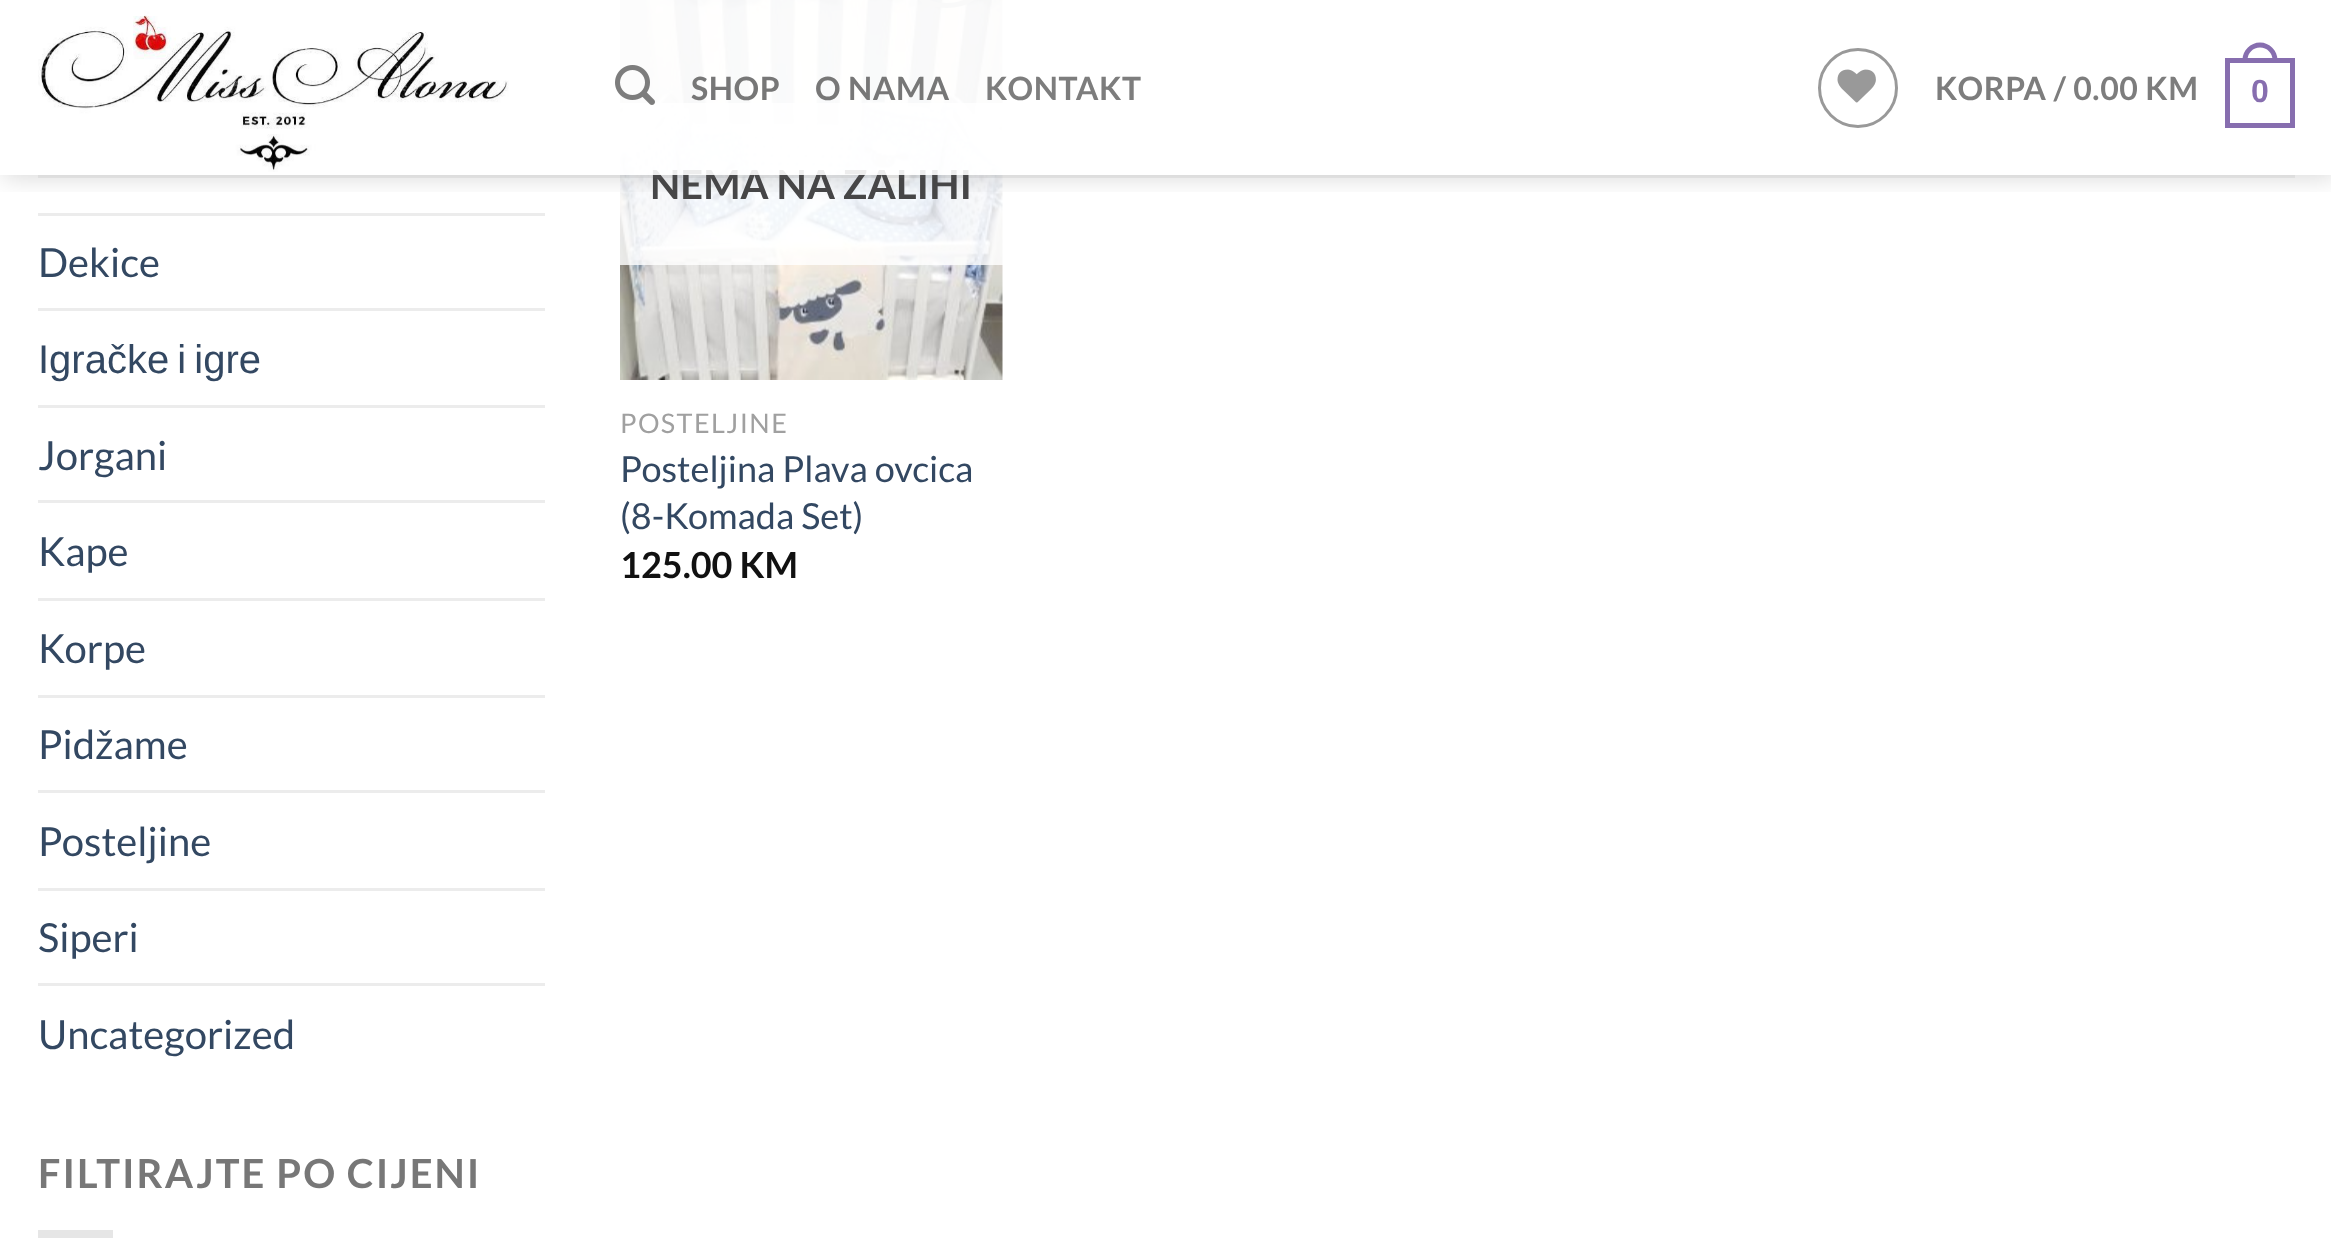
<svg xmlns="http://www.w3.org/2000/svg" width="2331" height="1247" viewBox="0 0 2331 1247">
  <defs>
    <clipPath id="clip1"><rect x="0" y="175" width="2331" height="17"/></clipPath>
  </defs>
  <rect width="100%" height="100%" fill="rgb(255,255,255)"/>
  <rect x="38" y="213" width="507" height="3" fill="rgb(236,236,236)"/>
  <image x="620" y="0" width="383" height="380" href="pic4.png"/>
  <rect x="910.5" y="-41.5" width="72" height="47" rx="36" fill="none" stroke="rgb(192,192,192)" stroke-width="5"/>
  <rect x="620" y="103" width="383" height="162" fill="rgba(255,255,255,0.81)"/>
  <g clip-path="url(#clip1)">
    <rect x="3" y="3" width="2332" height="175" fill="rgba(0,0,0,0.15)" filter="blur(12.5px)"/>
  </g>
  <text x="650" y="199" font-family="Lato" font-size="40" font-weight="bold" fill="rgb(70,70,71)">NEMA NA ZALIHI</text>
  <rect x="620" y="0" width="383" height="175" fill="rgba(255,255,255,0.9)"/>
  <image x="38" y="0" width="471" height="175" href="pic1.png"/>
  <image x="615" y="65" width="40" height="40" href="pic2.png"/>
  <g font-family="Lato" font-size="32" font-weight="bold" letter-spacing="0.6" fill="rgb(119,119,119)">
    <text x="691" y="100">SHOP</text>
    <text x="815" y="100">O NAMA</text>
  </g>
  <text x="985" y="100" font-family="Lato" font-size="32" font-weight="bold" letter-spacing="0.6" fill="rgb(125,125,125)">KONTAKT</text>
  <circle cx="1858" cy="88" r="38.5" fill="none" stroke="rgb(153,153,153)" stroke-width="3"/>
  <image x="1837" y="69" width="39" height="34" href="pic3.png"/>
  <text x="1935" y="100" font-family="Lato" font-size="32" font-weight="bold" letter-spacing="0.6" fill="rgb(125,125,125)">KORPA / 0.00 KM</text>
  <rect x="2227.5" y="60.5" width="65" height="65" fill="none" stroke="rgb(135,110,175)" stroke-width="5"/>
  <path d="M2260 42.5C2269.5 42.5 2277.5 50.5 2277.5 60V62.5H2242.5V60C2242.5 50.5 2250.5 42.5 2260 42.5ZM2260 47.5C2267 47.5 2272.5 53 2272.5 60V62.5H2247.5V60C2247.5 53 2253 47.5 2260 47.5Z" fill="rgb(135,110,175)" fill-rule="evenodd"/>
  <text x="2251" y="102" font-family="Liberation Sans" font-size="32" font-weight="bold" letter-spacing="0.6" fill="rgb(135,110,175)">0</text>
  <rect x="38" y="175" width="2257" height="3" fill="rgba(119,119,119,0.1)"/>
  <text x="38" y="277" font-family="Lato" font-size="40" fill="rgb(51,72,98)">Dekice</text>
  <rect x="38" y="308" width="507" height="3" fill="rgb(236,236,236)"/>
  <text x="38" y="373" word-spacing="-3" font-family="Liberation Sans" font-size="40" fill="rgb(51,72,98)">Igračke i igre</text>
  <rect x="38" y="405" width="507" height="3" fill="rgb(236,236,236)"/>
  <text x="38" y="470" font-family="Lato" font-size="40" fill="rgb(51,72,98)">Jorgani</text>
  <rect x="38" y="500" width="507" height="3" fill="rgb(236,236,236)"/>
  <text x="38" y="566" font-family="Lato" font-size="40" fill="rgb(51,72,98)">Kape</text>
  <rect x="38" y="598" width="507" height="3" fill="rgb(236,236,236)"/>
  <text x="38" y="663" font-family="Lato" font-size="40" fill="rgb(51,72,98)">Korpe</text>
  <rect x="38" y="695" width="507" height="3" fill="rgb(236,236,236)"/>
  <text x="38" y="759" font-family="Lato" font-size="40" fill="rgb(51,72,98)">Pidžame</text>
  <rect x="38" y="790" width="507" height="3" fill="rgb(236,236,236)"/>
  <text x="38" y="856" font-family="Lato" font-size="40" fill="rgb(51,72,98)">Posteljine</text>
  <rect x="38" y="888" width="507" height="3" fill="rgb(236,236,236)"/>
  <text x="38" y="952" font-family="Lato" font-size="40" fill="rgb(51,72,98)">Siperi</text>
  <rect x="38" y="983" width="507" height="3" fill="rgb(236,236,236)"/>
  <text x="38" y="1049" font-family="Lato" font-size="40" fill="rgb(51,72,98)">Uncategorized</text>
  <text x="38" y="1188" font-family="Lato" font-size="40" font-weight="bold" letter-spacing="2" fill="rgb(119,119,119)">FILTIRAJTE PO CIJENI</text>
  <rect x="38" y="1230" width="75" height="8" fill="rgb(230,230,230)"/>
  <text x="620" y="433" font-family="Lato" font-size="27" letter-spacing="1.4" fill="rgb(160,160,160)">POSTELJINE</text>
  <g font-family="Lato" font-size="36" fill="rgb(51,72,98)">
    <text>
      <tspan x="620" y="482">Posteljina Plava ovcica</tspan>
      <tspan x="620" y="529">(8-Komada Set)</tspan>
    </text>
  </g>
  <text x="620" y="578" font-family="Lato" font-size="36" font-weight="bold" fill="rgb(17,17,17)">125.00 KM</text>
</svg>
